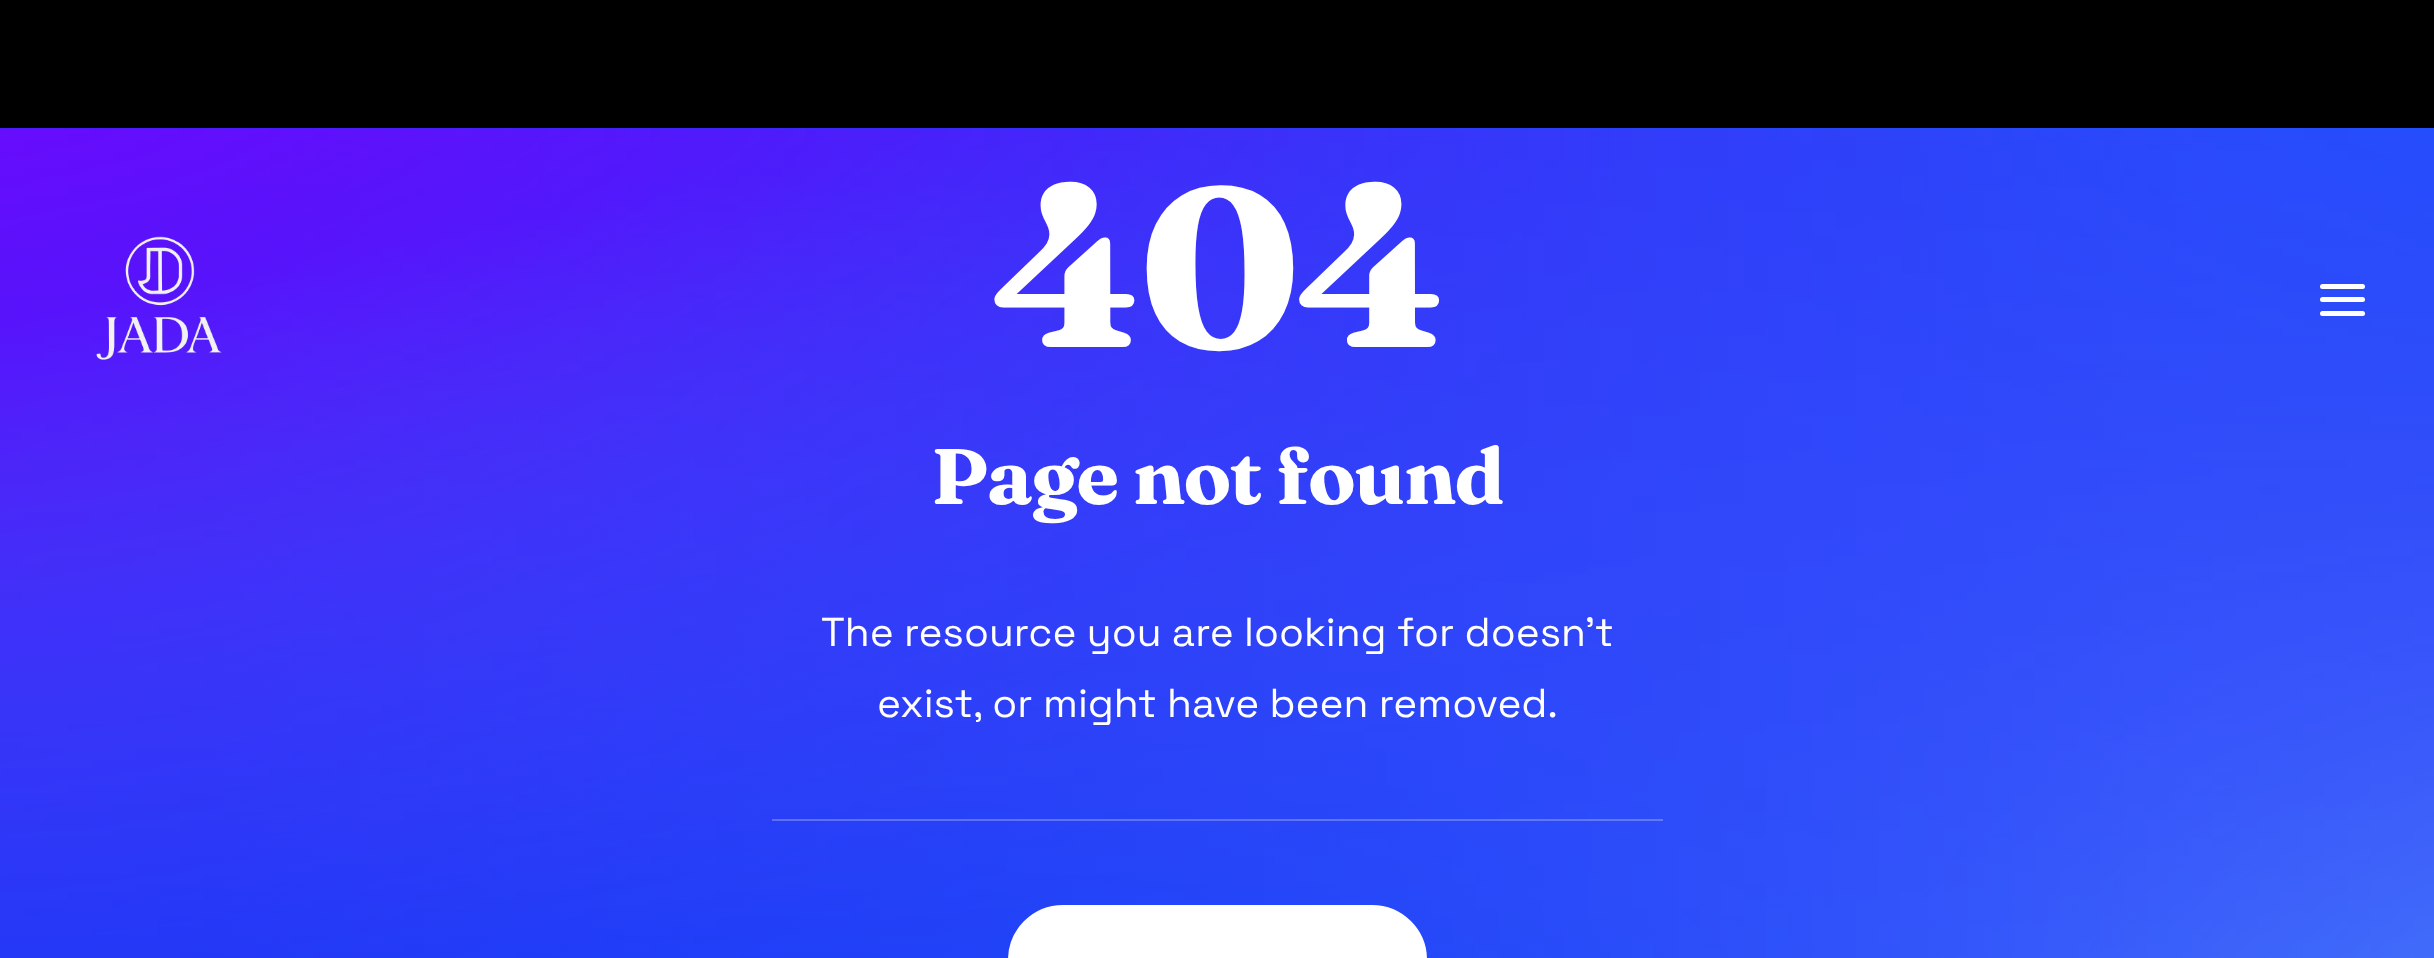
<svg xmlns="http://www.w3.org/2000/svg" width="2434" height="958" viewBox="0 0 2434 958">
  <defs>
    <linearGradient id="g1" gradientUnits="userSpaceOnUse" x1="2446" y1="613" x2="-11" y2="613"><stop offset="0.09" stop-color="rgb(17,92,250)"/><stop offset="0.91" stop-color="rgb(5,61,245)"/></linearGradient>
  </defs>
  <rect width="100%" height="100%" fill="rgb(0,0,0)"/>
  <rect x="0" y="128" width="2434" height="830" fill="url(#g1)"/>
  <image x="0" y="128" width="2434" height="830" href="pic1.png"/>
  <text x="991" y="347" font-family="Fraunces" font-size="225" font-weight="800" letter-spacing="-4.5" fill="rgb(255,255,255)">404</text>
  <text x="931" y="504" font-family="Fraunces" font-size="78.75" font-weight="bold" letter-spacing="-1.5" fill="rgb(255,255,255)">Page not found</text>
  <g font-family="Space Grotesk" font-size="40.5" fill="rgb(255,255,255)">
    <text x="821" y="646">The resource you are looking for doesn't</text>
    <text x="877" y="717">exist, or might have been removed.</text>
  </g>
  <rect x="772" y="819" width="891" height="2" fill="rgba(255,255,255,0.25)"/>
  <rect x="1009" y="906" width="417" height="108" rx="54" fill="rgb(255,255,255)" stroke="rgb(255,255,255)" stroke-width="2"/>
  <image x="96" y="236" width="126" height="124" href="pic2.png"/>
  <rect x="2320" y="297" width="45" height="5" rx="2.5" fill="rgb(255,255,255)"/>
  <rect x="2320" y="284" width="45" height="5" rx="2.5" fill="rgb(255,255,255)"/>
  <rect x="2320" y="311" width="45" height="5" rx="2.5" fill="rgb(255,255,255)"/>
</svg>
